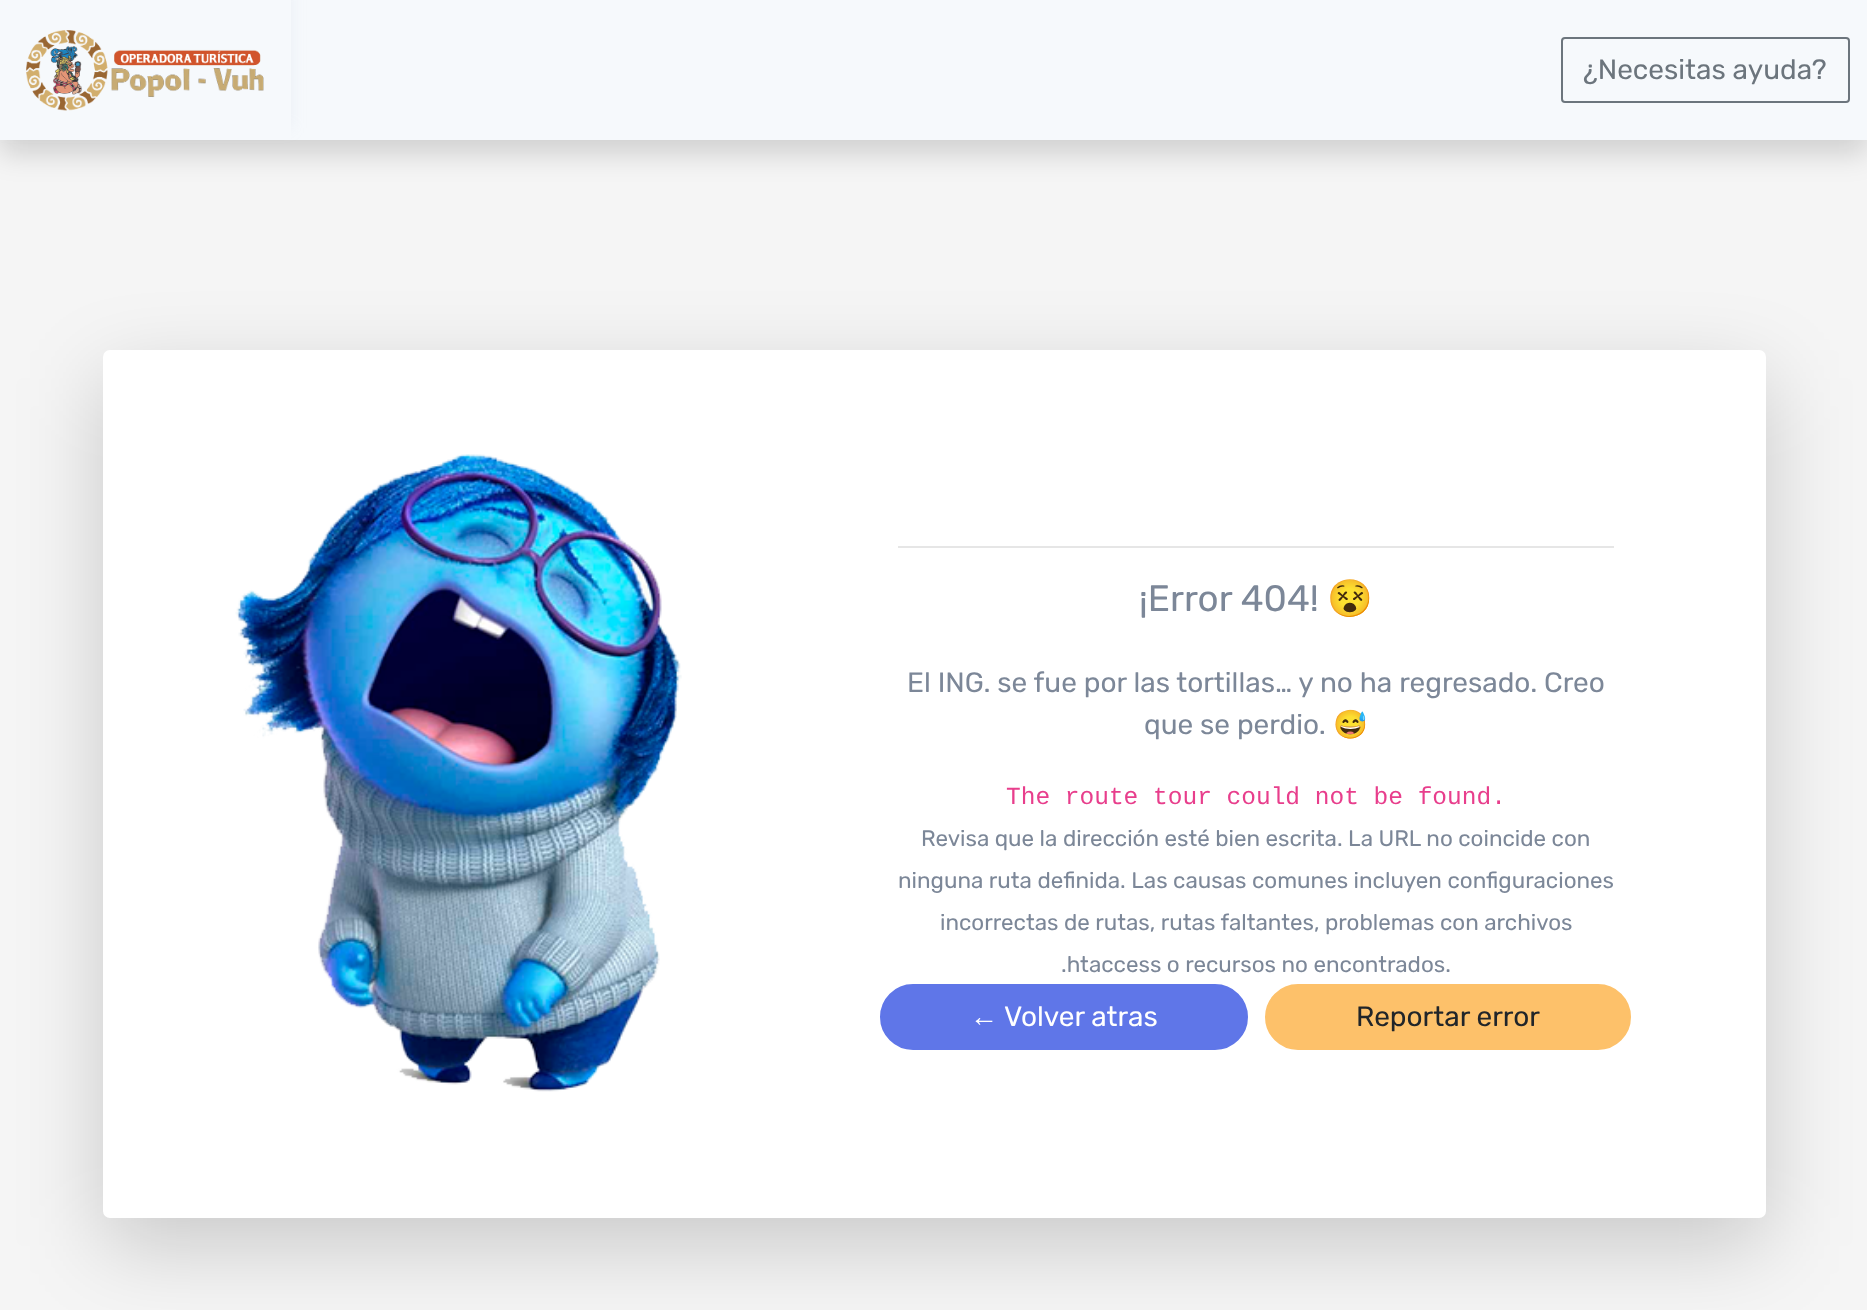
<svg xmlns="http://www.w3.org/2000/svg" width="1867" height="1310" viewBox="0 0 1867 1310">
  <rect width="100%" height="100%" fill="rgb(245,245,245)"/>
  <rect x="0" y="14" width="1867" height="140" fill="rgba(0,0,0,0.15)" filter="blur(14px)"/>
  <rect x="291" y="0" width="1576" height="140" fill="rgb(246,249,252)"/>
  <rect x="0" y="-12" width="291" height="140" fill="rgba(169,184,200,0.15)" filter="blur(8px)"/>
  <rect x="0" y="0" width="291" height="140" fill="rgb(246,249,252)"/>
  <image x="26" y="30" width="238" height="81" href="pic1.png"/>
  <rect x="1562" y="38" width="287" height="64" rx="3" fill="none" stroke="rgb(108,117,125)" stroke-width="2"/>
  <text x="1583" y="79" font-family="Rubik" font-size="28" fill="rgb(108,117,125)">¿Necesitas ayuda?</text>
  <rect x="103" y="378" width="1663" height="868" rx="7" fill="rgba(0,0,0,0.18)" filter="blur(42px)"/>
  <rect x="103" y="350" width="1663" height="868" rx="7" fill="rgb(255,255,255)"/>
  <image x="235" y="454" width="447" height="638" href="pic2.png"/>
  <rect x="898" y="546" width="716" height="2" fill="rgb(230,230,230)"/>
  <text x="1139" y="611" font-family="Rubik" font-size="36.75" fill="rgb(124,135,152)">¡Error 404!</text>
  <text x="1327" y="611" font-family="Noto Color Emoji" font-size="36.75" fill="rgb(124,135,152)">😵</text>
  <g font-family="Rubik" font-size="28" fill="rgb(124,135,152)">
    <text x="907" y="692">El ING. se fue por las tortillas… y no ha regresado. Creo</text>
    <text x="1144" y="734">que se perdio.</text>
  </g>
  <text x="1333" y="734" font-family="Noto Color Emoji" font-size="28" fill="rgb(124,135,152)">😅</text>
  <text x="1006" y="804" font-family="Liberation Mono" font-size="24.5" fill="rgb(232,62,140)">The route tour could not be found.</text>
  <g font-family="Rubik" font-size="22.4" fill="rgb(124,135,152)">
    <text x="921" y="846">Revisa que la dirección esté bien escrita. La URL no coincide con</text>
    <text x="898" y="888">ninguna ruta definida. Las causas comunes incluyen configuraciones</text>
    <text x="940" y="930">incorrectas de rutas, rutas faltantes, problemas con archivos</text>
    <text x="1061" y="972">.htaccess o recursos no encontrados.</text>
  </g>
  <rect x="881" y="985" width="366" height="64" rx="32" fill="rgb(95,118,232)" stroke="rgb(95,118,232)" stroke-width="2"/>
  <text x="970" y="1026" font-family="Liberation Sans" font-size="28" fill="rgb(255,255,255)">←</text>
  <text x="1004" y="1026" font-family="Rubik" font-size="28" fill="rgb(255,255,255)">Volver atras</text>
  <rect x="1266" y="985" width="364" height="64" rx="32" fill="rgb(253,193,106)" stroke="rgb(253,193,106)" stroke-width="2"/>
  <text x="1356" y="1026" font-family="Rubik" font-size="28" fill="rgb(33,37,41)">Reportar error</text>
</svg>
